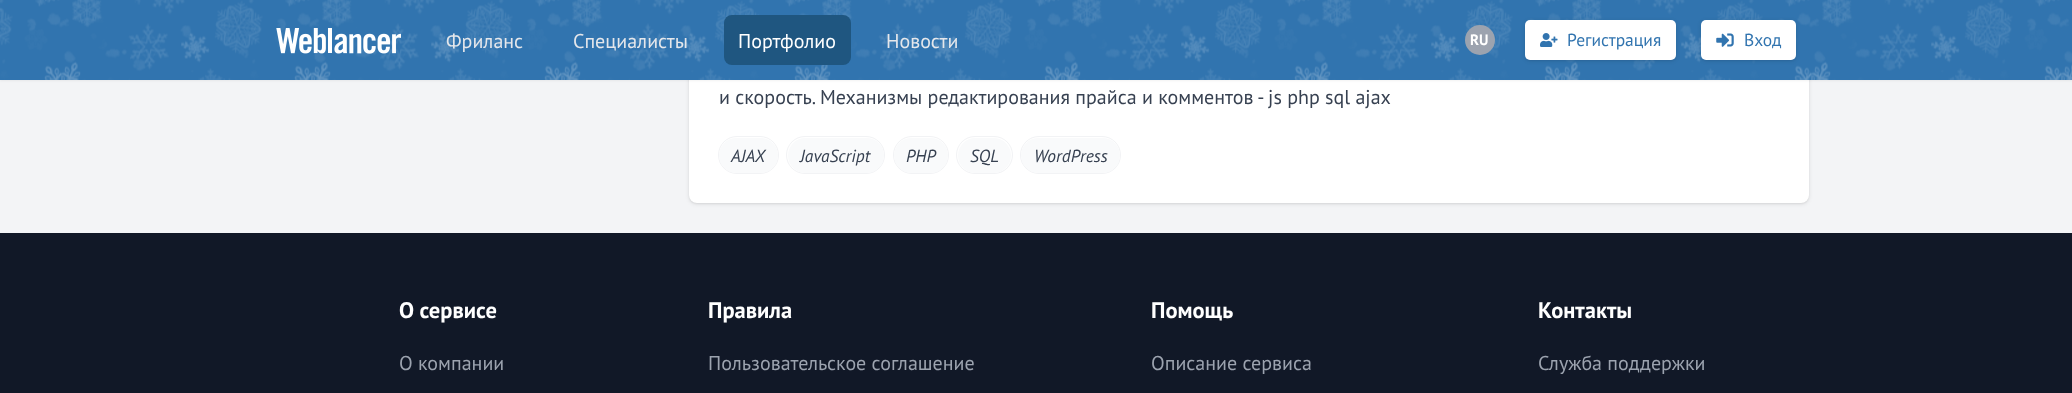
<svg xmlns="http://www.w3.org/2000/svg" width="2072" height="393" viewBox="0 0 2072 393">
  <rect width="100%" height="100%" fill="rgb(243,244,246)"/>
  <rect x="690" y="-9" width="1118" height="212" rx="6" fill="rgba(0,0,0,0.1)" filter="blur(1px)"/>
  <rect x="689" y="-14" width="1120" height="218" rx="8" fill="rgba(0,0,0,0.1)" filter="blur(2px)"/>
  <rect x="689" y="-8" width="1120" height="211" rx="8" fill="rgb(255,255,255)"/>
  <rect x="0" y="1" width="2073" height="80" fill="rgba(0,0,0,0.05)" filter="blur(1px)"/>
  <rect x="0" y="0" width="2072" height="80" fill="rgb(49,116,175)"/>
  <image x="0" y="0" width="2072" height="80" href="pic1.png"/>
  <image x="276" y="28" width="125" height="26" href="pic2.png"/>
  <g font-family="PT Sans" font-size="20" fill="rgb(229,231,235)">
    <text x="446" y="48">Фриланс</text>
    <text x="573" y="48">Специалисты</text>
  </g>
  <rect x="724" y="15" width="127" height="50" rx="8" fill="rgb(31,86,128)"/>
  <text x="738" y="48" font-family="PT Sans" font-size="20" fill="rgb(255,255,255)">Портфолио</text>
  <text x="886" y="48" font-family="PT Sans" font-size="20" fill="rgb(229,231,235)">Новости</text>
  <circle cx="1480" cy="40" r="15" fill="rgb(156,163,175)"/>
  <text x="1470" y="45" font-family="PT Sans" font-size="15" font-weight="bold" fill="rgb(255,255,255)">RU</text>
  <rect x="1526" y="23" width="149" height="37" rx="4" fill="rgba(0,0,0,0.1)" filter="blur(1px)"/>
  <rect x="1525" y="21" width="151" height="40" rx="5" fill="rgba(0,0,0,0.1)" filter="blur(2px)"/>
  <rect x="1525" y="20" width="151" height="40" rx="5" fill="rgb(255,255,255)"/>
  <image x="1540" y="33" width="18" height="14" href="pic3.png"/>
  <text x="1567" y="46" font-family="PT Sans" font-size="17.5" fill="rgb(49,116,175)">Регистрация</text>
  <rect x="1703" y="23" width="92" height="37" rx="4" fill="rgba(0,0,0,0.1)" filter="blur(1px)"/>
  <rect x="1701" y="21" width="95" height="40" rx="5" fill="rgba(0,0,0,0.1)" filter="blur(2px)"/>
  <rect x="1701" y="20" width="95" height="40" rx="5" fill="rgb(255,255,255)"/>
  <image x="1716" y="33" width="18" height="14" href="pic4.png"/>
  <text x="1744" y="46" font-family="PT Sans" font-size="17.5" fill="rgb(49,116,175)">Вход</text>
  <text x="719" y="104" font-family="PT Sans" font-size="20" fill="rgb(55,65,81)">и скорость. Механизмы редактирования прайса и комментов - js php sql ajax</text>
  <rect x="718.5" y="136.5" width="60" height="37" rx="18.5" fill="none" stroke="rgb(242,243,245)"/>
  <rect x="719" y="138" width="59" height="35" rx="17.5" fill="rgb(249,250,251)"/>
  <text x="731" y="162" font-family="PT Sans" font-size="17.5" font-style="italic" fill="rgb(55,65,81)">AJAX</text>
  <rect x="786.5" y="136.5" width="98" height="37" rx="18.5" fill="none" stroke="rgb(242,243,245)"/>
  <rect x="788" y="138" width="96" height="35" rx="17.5" fill="rgb(249,250,251)"/>
  <text x="800" y="162" font-family="PT Sans" font-size="17.5" font-style="italic" fill="rgb(55,65,81)">JavaScript</text>
  <rect x="893.5" y="136.5" width="55" height="37" rx="18.5" fill="none" stroke="rgb(242,243,245)"/>
  <rect x="894" y="138" width="54" height="35" rx="17.5" fill="rgb(249,250,251)"/>
  <text x="906" y="162" font-family="PT Sans" font-size="17.5" font-style="italic" fill="rgb(55,65,81)">PHP</text>
  <rect x="956.5" y="136.5" width="56" height="37" rx="18.5" fill="none" stroke="rgb(242,243,245)"/>
  <rect x="958" y="138" width="53" height="35" rx="17.5" fill="rgb(249,250,251)"/>
  <text x="970" y="162" font-family="PT Sans" font-size="17.5" font-style="italic" fill="rgb(55,65,81)">SQL</text>
  <rect x="1020.5" y="136.5" width="100" height="37" rx="18.5" fill="none" stroke="rgb(242,243,245)"/>
  <rect x="1021" y="138" width="99" height="35" rx="17.5" fill="rgb(249,250,251)"/>
  <text x="1034" y="162" font-family="PT Sans" font-size="17.5" font-style="italic" fill="rgb(55,65,81)">WordPress</text>
  <rect x="0" y="233" width="2072" height="160" fill="rgb(17,24,39)"/>
  <text x="399" y="318" font-family="PT Sans" font-size="22.5" font-weight="bold" fill="rgb(255,255,255)">О сервисе</text>
  <text x="399" y="370" font-family="PT Sans" font-size="20" fill="rgb(156,163,175)">О компании</text>
  <text x="708" y="318" font-family="PT Sans" font-size="22.5" font-weight="bold" fill="rgb(255,255,255)">Правила</text>
  <text x="708" y="370" font-family="PT Sans" font-size="20" fill="rgb(156,163,175)">Пользовательское соглашение</text>
  <text x="1151" y="318" font-family="PT Sans" font-size="22.5" font-weight="bold" fill="rgb(255,255,255)">Помощь</text>
  <text x="1151" y="370" font-family="PT Sans" font-size="20" fill="rgb(156,163,175)">Описание сервиса</text>
  <text x="1538" y="318" font-family="PT Sans" font-size="22.5" font-weight="bold" fill="rgb(255,255,255)">Контакты</text>
  <text x="1538" y="370" font-family="PT Sans" font-size="20" fill="rgb(156,163,175)">Служба поддержки</text>
</svg>
